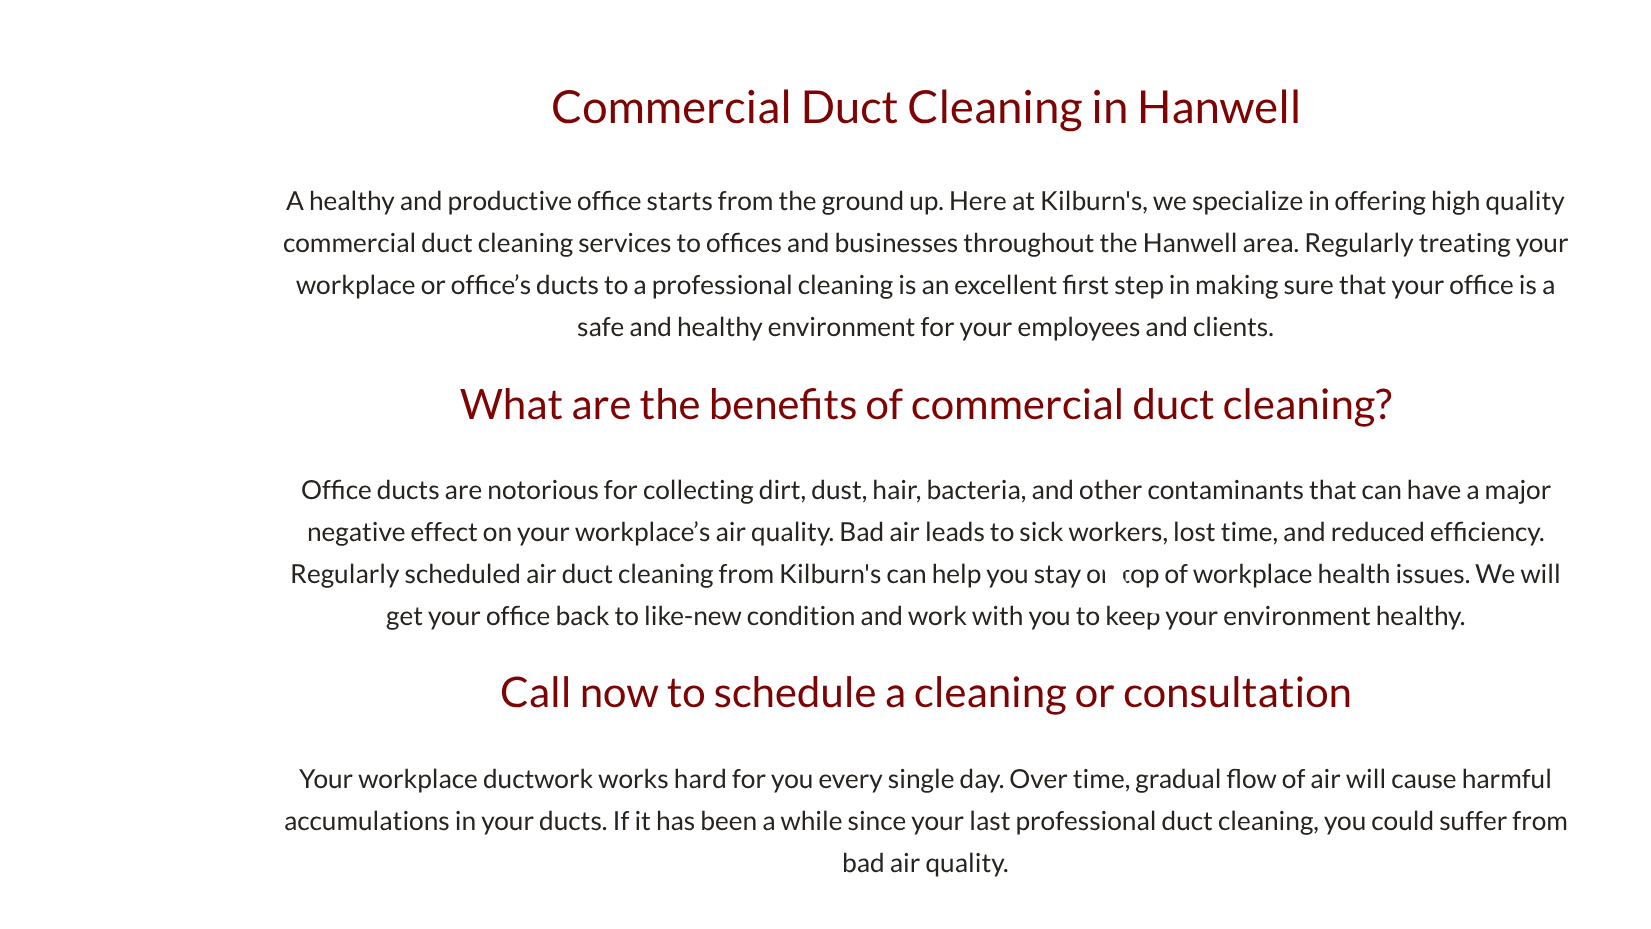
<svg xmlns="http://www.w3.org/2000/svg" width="1651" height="929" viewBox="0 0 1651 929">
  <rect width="100%" height="100%" fill="rgb(255,255,255)"/>
  <text x="551" y="123" font-family="Lato" font-size="45.5" fill="rgb(125,4,4)">Commercial Duct Cleaning in Hanwell</text>
  <g font-family="Lato" font-size="26.25" fill="rgb(39,36,32)">
    <text x="286" y="210">A healthy and productive office starts from the ground up. Here at Kilburn's, we specialize in offering high quality</text>
    <text x="283" y="252">commercial duct cleaning services to offices and businesses throughout the Hanwell area. Regularly treating your</text>
    <text x="296" y="294">workplace or office’s ducts to a professional cleaning is an excellent first step in making sure that your office is a</text>
    <text x="577" y="336">safe and healthy environment for your employees and clients.</text>
  </g>
  <text x="460" y="419" font-family="Lato" font-size="42" fill="rgb(125,4,4)">What are the benefits of commercial duct cleaning?</text>
  <g font-family="Lato" font-size="26.25" fill="rgb(39,36,32)">
    <text x="301" y="499">Office ducts are notorious for collecting dirt, dust, hair, bacteria, and other contaminants that can have a major</text>
    <text x="307" y="541">negative effect on your workplace’s air quality. Bad air leads to sick workers, lost time, and reduced efficiency.</text>
    <text x="290" y="583">Regularly scheduled air duct cleaning from Kilburn's can help you stay on top of workplace health issues. We will</text>
    <text x="386" y="625">get your office back to like-new condition and work with you to keep your environment healthy.</text>
  </g>
  <text x="500" y="707" font-family="Lato" font-size="42" fill="rgb(125,4,4)">Call now to schedule a cleaning or consultation</text>
  <g font-family="Lato" font-size="26.25" fill="rgb(39,36,32)">
    <text x="299" y="788">Your workplace ductwork works hard for you every single day. Over time, gradual flow of air will cause harmful</text>
    <text x="284" y="830">accumulations in your ducts. If it has been a while since your last professional duct cleaning, you could suffer from</text>
    <text x="842" y="872">bad air quality.</text>
  </g>
  <image x="1104" y="565" width="55" height="49" href="pic1.png"/>
</svg>
